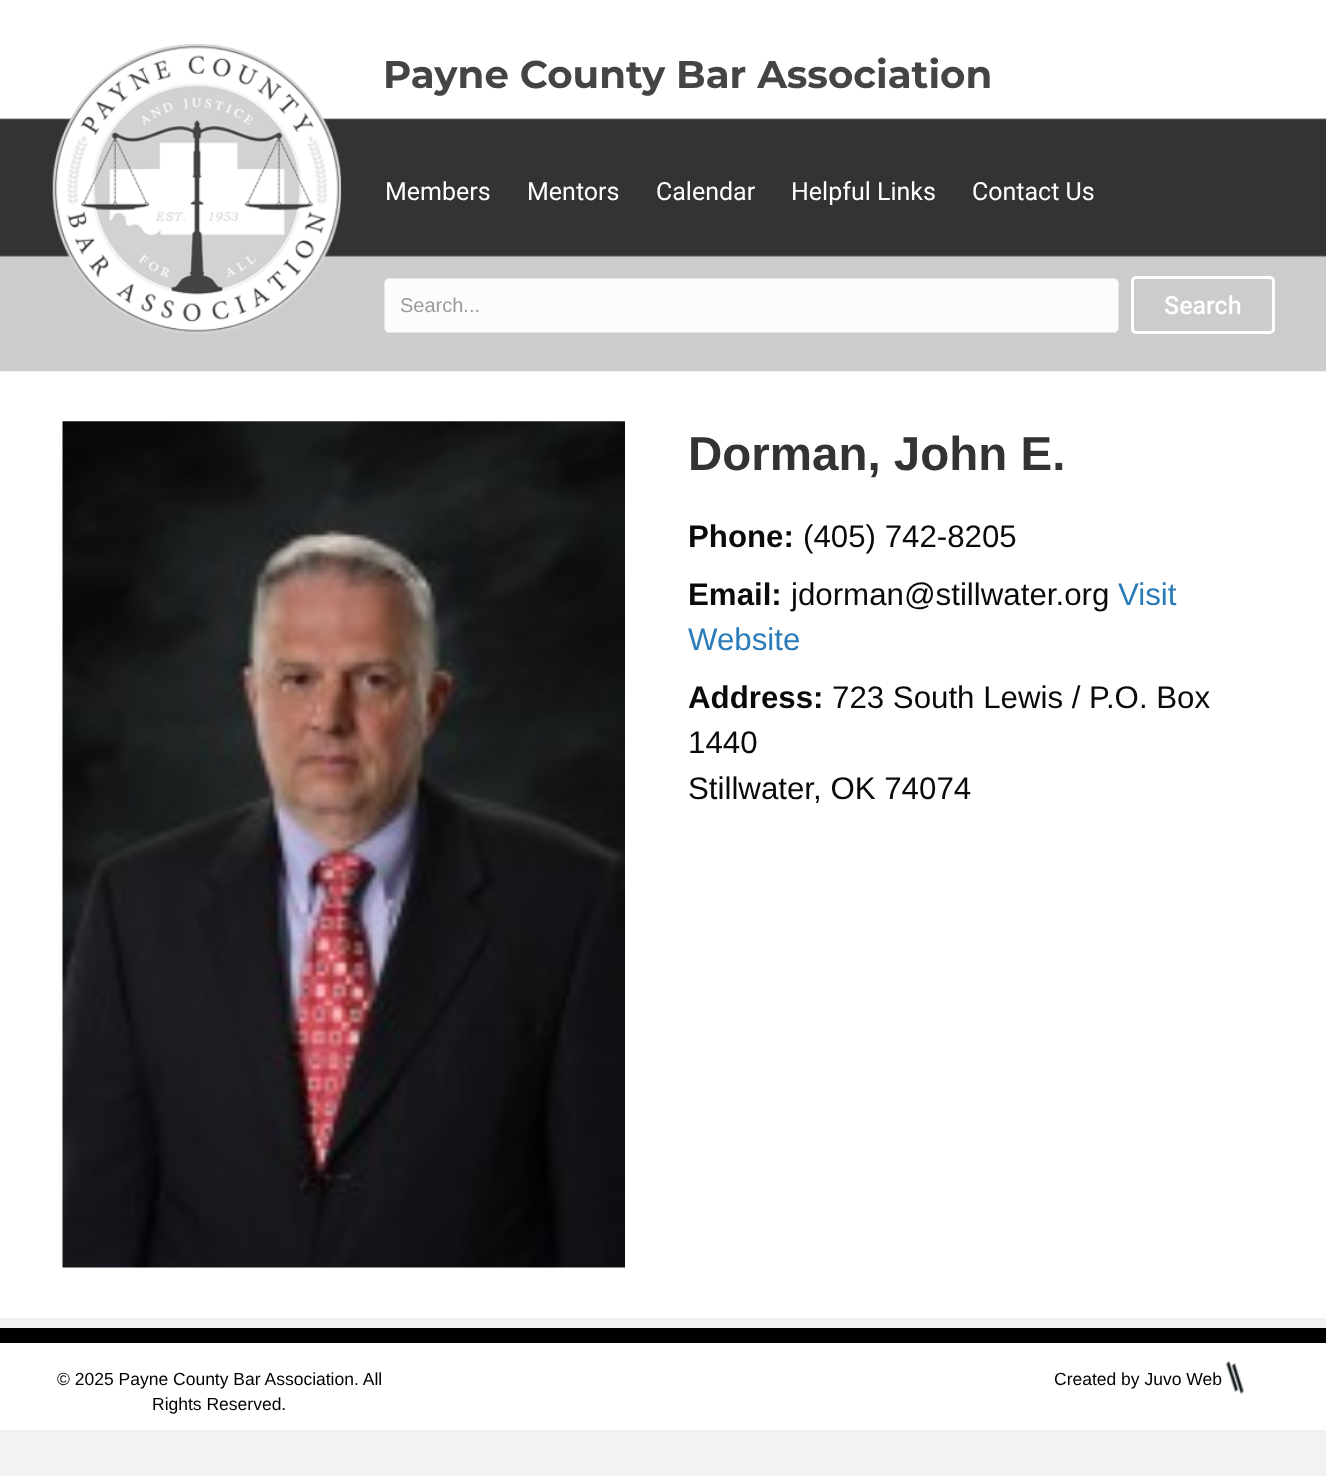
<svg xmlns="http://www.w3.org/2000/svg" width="1326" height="1476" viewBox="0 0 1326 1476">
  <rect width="100%" height="100%" fill="rgb(242,242,242)"/>
  <rect x="0" y="371" width="1326" height="947" fill="rgb(255,255,255)"/>
  <image x="0" y="0" width="1326" height="372" href="pic1.png"/>
  <image x="52" y="44" width="290" height="290" href="pic2.png"/>
  <text x="383" y="88" font-family="Montserrat" font-size="38.75" font-weight="100" fill="rgb(68,68,68)">Payne County Bar Association</text>
  <g font-family="Roboto" font-size="25" fill="rgb(255,255,255)">
    <text x="385" y="200">Members</text>
    <text x="527" y="200">Mentors</text>
    <text x="656" y="200">Calendar</text>
    <text x="791" y="200">Helpful Links</text>
    <text x="972" y="200">Contact Us</text>
  </g>
  <rect x="384.5" y="278.5" width="734" height="54" rx="4.5" fill="rgb(252,252,252)" stroke="rgb(230,230,230)"/>
  <text x="400" y="312" font-family="Liberation Sans" font-size="20" fill="rgb(155,155,155)">Search...</text>
  <rect x="1132.5" y="277.5" width="141" height="55" rx="3.5" fill="none" stroke="rgb(255,255,255)" stroke-width="3"/>
  <text x="1164" y="314" font-family="Roboto" font-size="25" font-weight="500" fill="rgb(255,255,255)">Search</text>
  <image x="62" y="421" width="563" height="847" href="pic3.png"/>
  <text x="688" y="470" font-family="Liberation Sans" font-size="47.5" font-weight="bold" fill="rgb(51,51,51)">Dorman, John E.</text>
  <text x="688" y="547" font-family="Liberation Sans" font-size="31.25" font-weight="bold" fill="rgb(10,10,10)">Phone:</text>
  <text x="803" y="547" font-family="Liberation Sans" font-size="31.25" fill="rgb(10,10,10)">(405) 742-8205</text>
  <text x="688" y="605" font-family="Liberation Sans" font-size="31.25" font-weight="bold" fill="rgb(10,10,10)">Email:</text>
  <text x="791" y="605" font-family="Liberation Sans" font-size="31.25" fill="rgb(10,10,10)">jdorman@stillwater.org</text>
  <g font-family="Liberation Sans" font-size="31.25" fill="rgb(43,123,185)">
    <text x="1118" y="605">Visit</text>
    <text x="688" y="650">Website</text>
  </g>
  <text x="688" y="708" font-family="Liberation Sans" font-size="31.25" font-weight="bold" fill="rgb(10,10,10)">Address:</text>
  <g font-family="Liberation Sans" font-size="31.25" fill="rgb(10,10,10)">
    <text x="832" y="708">723 South Lewis / P.O. Box</text>
    <text>
      <tspan x="688" y="753">1440</tspan>
      <tspan x="688" y="799">Stillwater, OK 74074</tspan>
    </text>
  </g>
  <rect x="0" y="1328" width="1326" height="15" fill="rgb(0,0,0)"/>
  <rect x="0" y="1343" width="1326" height="87" fill="rgb(255,255,255)"/>
  <g font-family="Liberation Sans" font-size="17.5" fill="rgb(0,0,0)">
    <text x="57" y="1385">© 2025 Payne County Bar Association. All</text>
    <text x="152" y="1410">Rights Reserved.</text>
    <text x="1054" y="1385">Created by Juvo Web</text>
  </g>
  <image x="1226" y="1361" width="18" height="33" href="pic4.png"/>
</svg>
